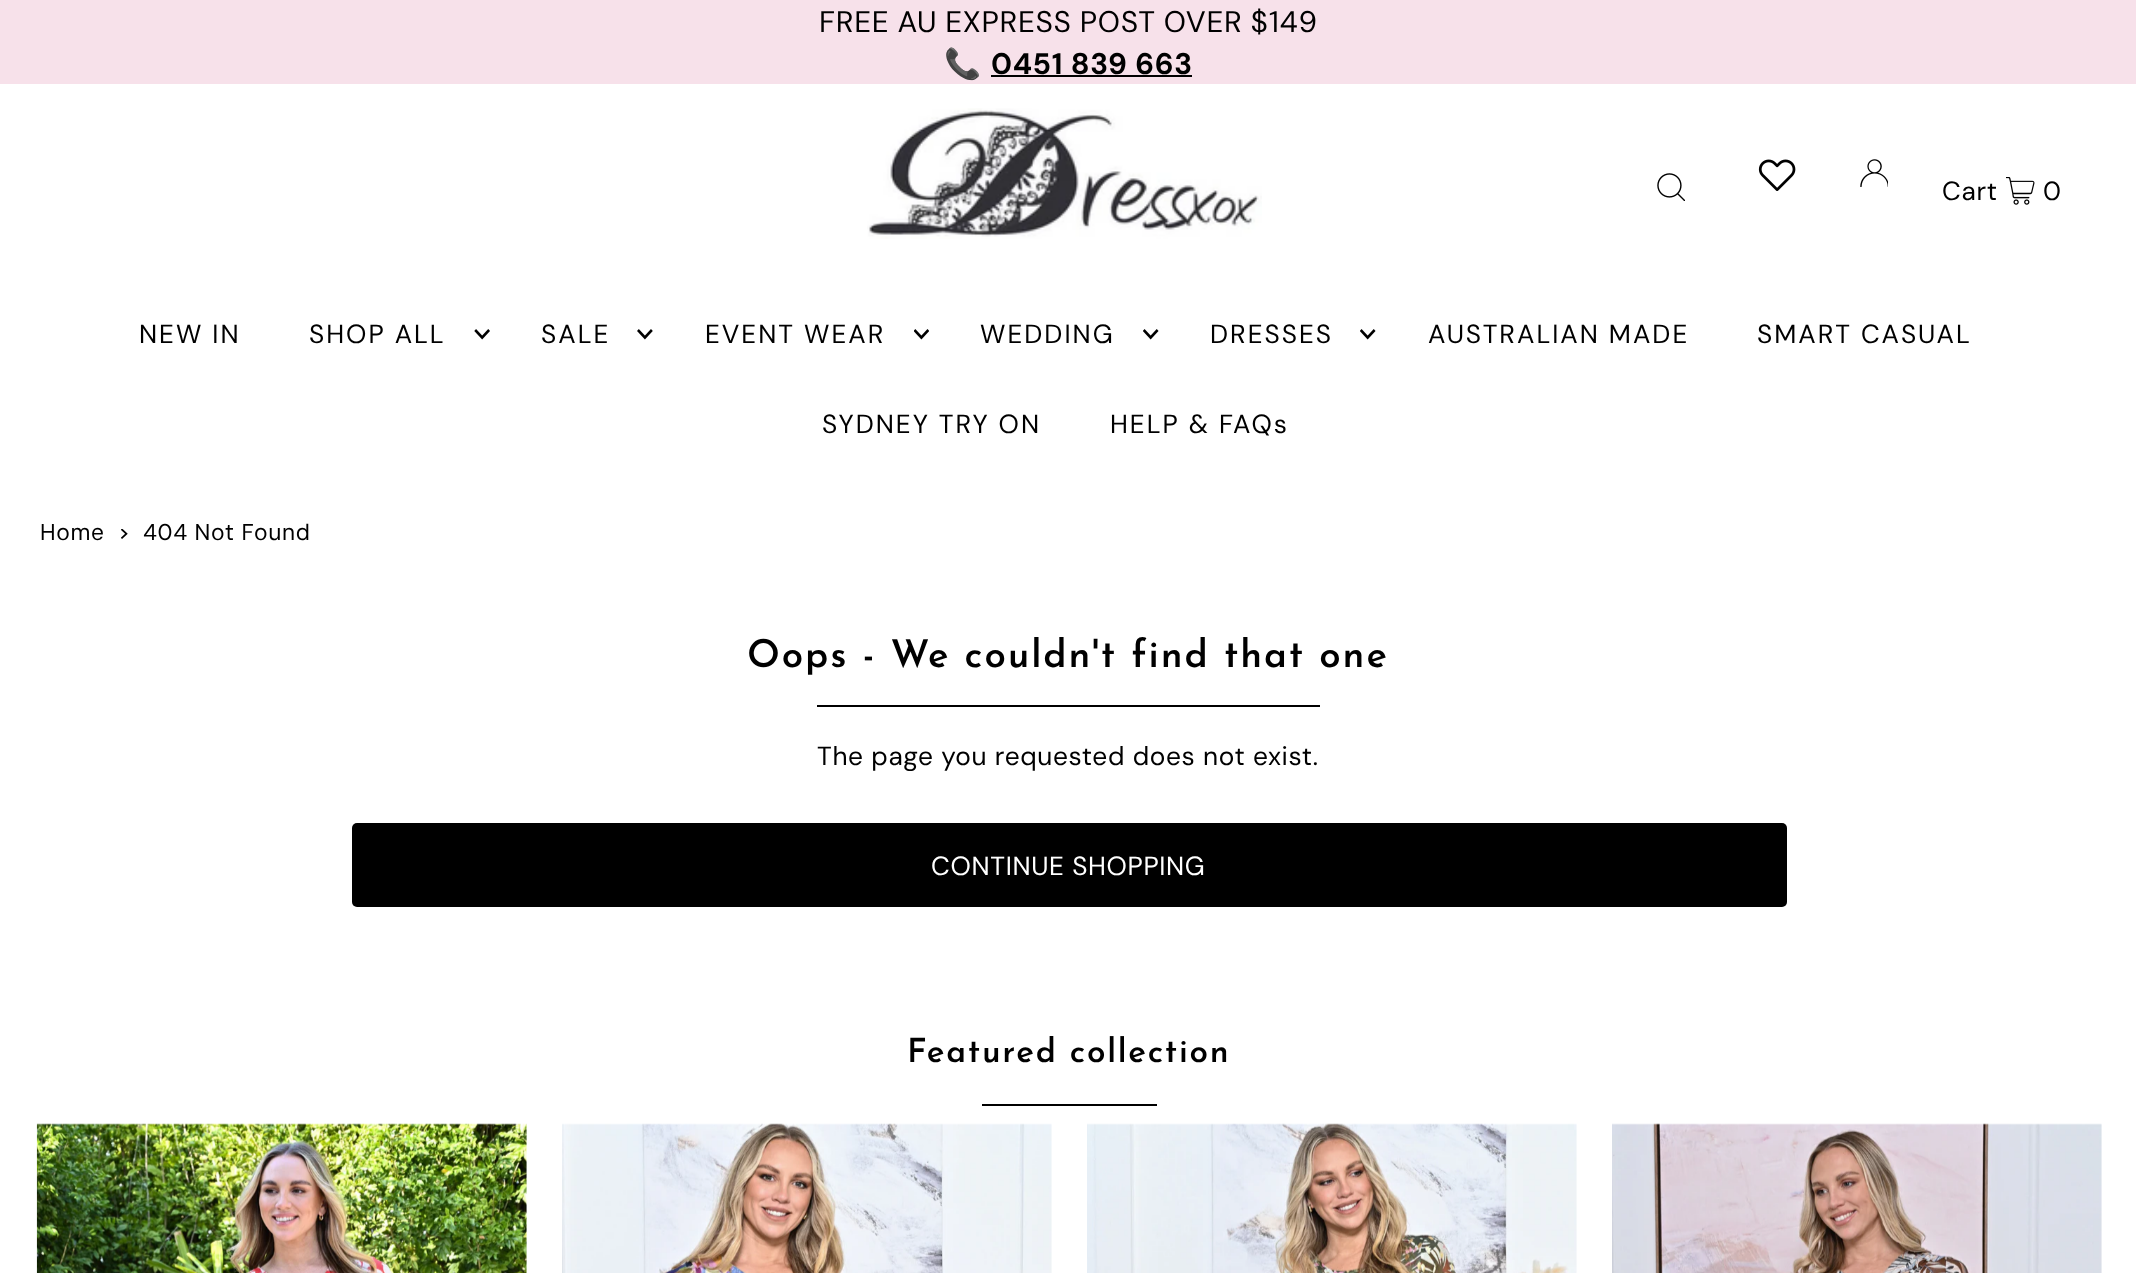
<svg xmlns="http://www.w3.org/2000/svg" width="2136" height="1273" viewBox="0 0 2136 1273">
  <rect width="100%" height="100%" fill="rgb(255,255,255)"/>
  <rect x="0" y="0" width="2136" height="84" fill="rgb(247,225,234)"/>
  <text x="819" y="32" word-spacing="-0.5" font-family="DM Sans" font-size="29.75" letter-spacing="0.65" fill="rgb(0,0,0)">FREE AU EXPRESS POST OVER $149</text>
  <text x="944" y="74" font-family="Noto Color Emoji" font-size="29.75" letter-spacing="0.65" fill="rgb(0,0,0)">📞</text>
  <text x="991" y="74" font-family="DM Sans" font-size="29.75" font-weight="bold" letter-spacing="0.65" fill="rgb(0,0,0)">0451 839 663</text>
  <rect x="991" y="75" width="201" height="2" fill="rgb(0,0,0)"/>
  <image x="867" y="108" width="395" height="131" href="pic1.png"/>
  <image x="1657" y="173" width="28" height="28" href="pic2.png"/>
  <image x="1758" y="159" width="38" height="32" href="pic3.png"/>
  <image x="1860" y="159" width="28" height="28" href="pic4.png"/>
  <text x="1942" y="200" font-family="'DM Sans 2'" font-size="26.25" letter-spacing="0.65" fill="rgb(0,0,0)">Cart</text>
  <image x="2006" y="177" width="29" height="28" href="pic5.png"/>
  <text x="2043" y="200" font-family="'DM Sans 2'" font-size="26.25" letter-spacing="0.65" fill="rgb(0,0,0)">0</text>
  <g font-family="'DM Sans 2'" font-size="26.25" letter-spacing="2" fill="rgb(0,0,0)">
    <text x="139" y="343">NEW IN</text>
    <text x="309" y="343">SHOP ALL</text>
  </g>
  <image x="474" y="329" width="16" height="11" href="pic6.png"/>
  <text x="541" y="343" font-family="'DM Sans 2'" font-size="26.25" letter-spacing="2" fill="rgb(0,0,0)">SALE</text>
  <image x="637" y="329" width="16" height="11" href="pic7.png"/>
  <text x="705" y="343" font-family="'DM Sans 2'" font-size="26.25" letter-spacing="2" fill="rgb(0,0,0)">EVENT WEAR</text>
  <image x="914" y="329" width="15" height="11" href="pic8.png"/>
  <text x="980" y="343" font-family="'DM Sans 2'" font-size="26.25" letter-spacing="2" fill="rgb(0,0,0)">WEDDING</text>
  <image x="1143" y="329" width="16" height="11" href="pic9.png"/>
  <text x="1210" y="343" font-family="'DM Sans 2'" font-size="26.25" letter-spacing="2" fill="rgb(0,0,0)">DRESSES</text>
  <image x="1360" y="329" width="16" height="11" href="pic9.png"/>
  <g font-family="'DM Sans 2'" font-size="26.25" letter-spacing="2" fill="rgb(0,0,0)">
    <text x="1428" y="343">AUSTRALIAN MADE</text>
    <text x="1757" y="343">SMART CASUAL</text>
    <text x="822" y="433">SYDNEY TRY ON</text>
    <text x="1110" y="433">HELP &amp; FAQs</text>
  </g>
  <text x="40" y="540" font-family="DM Sans" font-size="22.75" letter-spacing="0.65" fill="rgb(0,0,0)">Home</text>
  <image x="121" y="529" width="7" height="10" href="pic10.png"/>
  <text x="143" y="540" font-family="DM Sans" font-size="22.75" letter-spacing="0.65" fill="rgb(0,0,0)">404 Not Found</text>
  <text x="747" y="667" font-family="Josefin Sans" font-size="38.5" font-weight="600" letter-spacing="1.9" fill="rgb(0,0,0)">Oops - We couldn't find that one</text>
  <rect x="817" y="705" width="503" height="2" fill="rgb(0,0,0)"/>
  <text x="817" y="765" font-family="'DM Sans 2'" font-size="26.25" letter-spacing="0.65" fill="rgb(0,0,0)">The page you requested does not exist.</text>
  <rect x="352" y="823" width="1435" height="84" rx="5" fill="rgb(0,0,0)"/>
  <text x="931" y="875" font-family="'DM Sans 2'" font-size="26.25" letter-spacing="0.65" fill="rgb(255,255,255)">CONTINUE SHOPPING</text>
  <text x="907" y="1062" font-family="Josefin Sans" font-size="33.25" font-weight="600" letter-spacing="1.7" fill="rgb(0,0,0)">Featured collection</text>
  <rect x="982" y="1104" width="175" height="2" fill="rgb(0,0,0)"/>
  <image x="36" y="1123" width="491" height="150" href="pic11.png"/>
  <image x="562" y="1123" width="490" height="150" href="pic12.png"/>
  <image x="1087" y="1123" width="490" height="150" href="pic13.png"/>
  <image x="1612" y="1123" width="490" height="150" href="pic14.png"/>
</svg>
